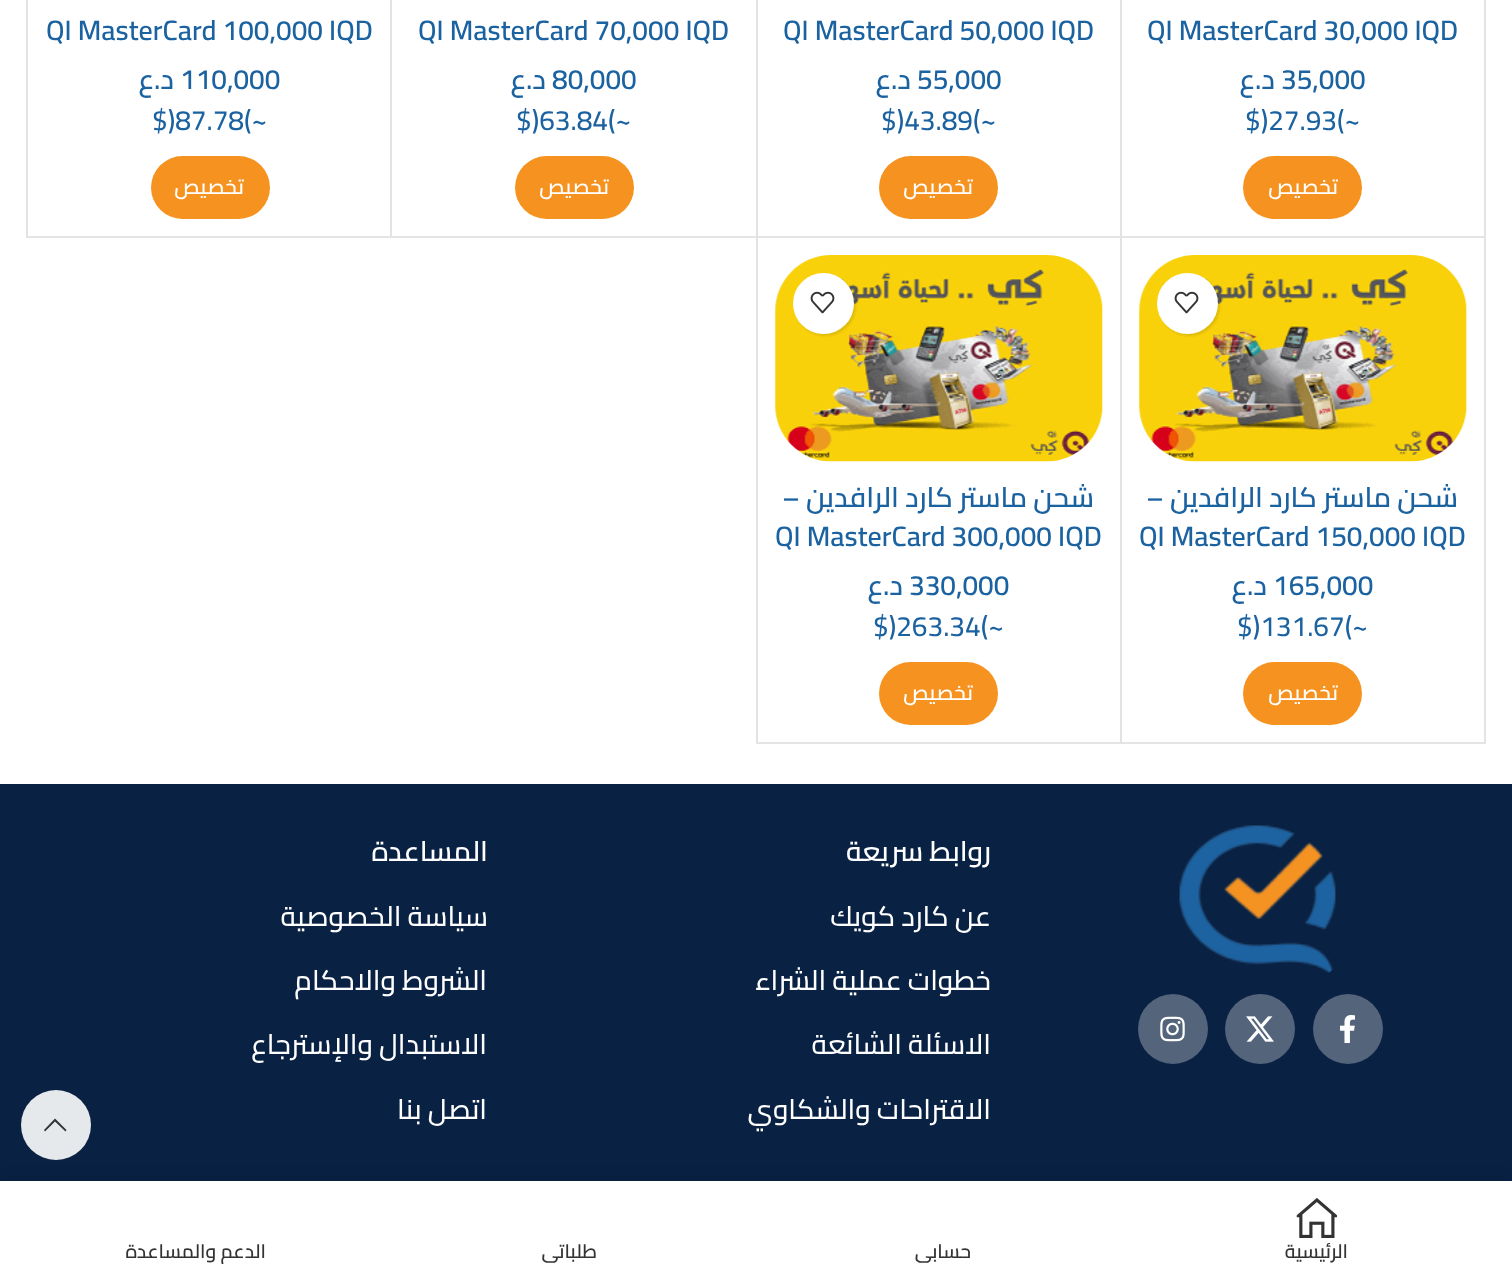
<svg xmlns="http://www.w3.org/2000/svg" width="1512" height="1277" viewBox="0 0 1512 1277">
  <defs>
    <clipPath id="clip1"><rect x="774" y="1241" width="339" height="23"/></clipPath>
    <clipPath id="clip2"><rect x="401" y="1241" width="338" height="23"/></clipPath>
    <clipPath id="clip3"><rect x="26" y="1241" width="340" height="23"/></clipPath>
  </defs>
  <rect width="100%" height="100%" fill="rgb(255,255,255)"/>
  <rect x="1484" y="0" width="2" height="744" fill="rgb(228,228,228)"/>
  <path d="M1484 238H1120L1122 236H1484Z" fill="rgb(228,228,228)"/>
  <path d="M1120 238V-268H1122V236Z" fill="rgba(0,0,0,0.11)"/>
  <g font-family="Cairo" font-size="28" font-weight="600" fill="rgb(27,98,161)">
    <text x="1147" y="40">QI MasterCard 30,000 IQD</text>
    <text x="1281" y="89">35,000</text>
  </g>
  <text x="1275" y="89" font-family="Cairo" font-size="28" font-weight="600" direction="rtl" fill="rgb(27,98,161)">د.ع</text>
  <text x="1245" y="130" font-family="Cairo" font-size="28" font-weight="500" fill="rgb(27,98,161)">$)27.93(~</text>
  <rect x="1243" y="156" width="119" height="63" rx="31.5" fill="rgb(246,147,32)"/>
  <text x="1338" y="194" font-family="Cairo" font-size="21" font-weight="600" direction="rtl" fill="rgb(255,255,255)">تخصيص</text>
  <path d="M1120 238H756L758 236H1120Z" fill="rgb(228,228,228)"/>
  <path d="M756 238V-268H758V236Z" fill="rgba(0,0,0,0.11)"/>
  <g font-family="Cairo" font-size="28" font-weight="600" fill="rgb(27,98,161)">
    <text x="783" y="40">QI MasterCard 50,000 IQD</text>
    <text x="917" y="89">55,000</text>
  </g>
  <text x="911" y="89" font-family="Cairo" font-size="28" font-weight="600" direction="rtl" fill="rgb(27,98,161)">د.ع</text>
  <text x="881" y="130" font-family="Cairo" font-size="28" font-weight="500" fill="rgb(27,98,161)">$)43.89(~</text>
  <rect x="879" y="156" width="119" height="63" rx="31.5" fill="rgb(246,147,32)"/>
  <text x="973" y="194" font-family="Cairo" font-size="21" font-weight="600" direction="rtl" fill="rgb(255,255,255)">تخصيص</text>
  <path d="M756 238H390L392 236H756Z" fill="rgb(228,228,228)"/>
  <path d="M390 238V-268H392V236Z" fill="rgba(0,0,0,0.11)"/>
  <g font-family="Cairo" font-size="28" font-weight="600" fill="rgb(27,98,161)">
    <text x="418" y="40">QI MasterCard 70,000 IQD</text>
    <text x="552" y="89">80,000</text>
  </g>
  <text x="546" y="89" font-family="Cairo" font-size="28" font-weight="600" direction="rtl" fill="rgb(27,98,161)">د.ع</text>
  <text x="516" y="130" font-family="Cairo" font-size="28" font-weight="500" fill="rgb(27,98,161)">$)63.84(~</text>
  <rect x="515" y="156" width="119" height="63" rx="31.5" fill="rgb(246,147,32)"/>
  <text x="609" y="194" font-family="Cairo" font-size="21" font-weight="600" direction="rtl" fill="rgb(255,255,255)">تخصيص</text>
  <path d="M390 238H26L28 236H390Z" fill="rgb(228,228,228)"/>
  <path d="M26 238V-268H28V236Z" fill="rgba(0,0,0,0.11)"/>
  <g font-family="Cairo" font-size="28" font-weight="600" fill="rgb(27,98,161)">
    <text x="46" y="40">QI MasterCard 100,000 IQD</text>
    <text x="180" y="89">110,000</text>
  </g>
  <text x="174" y="89" font-family="Cairo" font-size="28" font-weight="600" direction="rtl" fill="rgb(27,98,161)">د.ع</text>
  <text x="152" y="130" font-family="Cairo" font-size="28" font-weight="500" fill="rgb(27,98,161)">$)87.78(~</text>
  <rect x="151" y="156" width="119" height="63" rx="31.5" fill="rgb(246,147,32)"/>
  <text x="244" y="194" font-family="Cairo" font-size="21" font-weight="600" direction="rtl" fill="rgb(255,255,255)">تخصيص</text>
  <path d="M1484 744H1120L1122 742H1484Z" fill="rgb(228,228,228)"/>
  <path d="M1120 744V238H1122V742Z" fill="rgba(0,0,0,0.11)"/>
  <image x="1139" y="255" width="328" height="207" href="pic1.png"/>
  <rect x="1159" y="275" width="61" height="61" rx="30.5" fill="rgba(0,0,0,0.1)" filter="blur(1px)"/>
  <circle cx="1187.5" cy="303.5" r="30.5" fill="rgb(255,255,255)"/>
  <image x="1174" y="291" width="25" height="23" href="pic2.png"/>
  <text x="1458" y="507" font-family="Cairo" font-size="28" font-weight="600" direction="rtl" fill="rgb(27,98,161)">شحن ماستر كارد الرافدين –</text>
  <g font-family="Cairo" font-size="28" font-weight="600" fill="rgb(27,98,161)">
    <text x="1139" y="546">QI MasterCard 150,000 IQD</text>
    <text x="1273" y="595">165,000</text>
  </g>
  <text x="1267" y="595" font-family="Cairo" font-size="28" font-weight="600" direction="rtl" fill="rgb(27,98,161)">د.ع</text>
  <text x="1237" y="636" font-family="Cairo" font-size="28" font-weight="500" fill="rgb(27,98,161)">$)131.67(~</text>
  <rect x="1243" y="662" width="119" height="63" rx="31.5" fill="rgb(246,147,32)"/>
  <text x="1338" y="700" font-family="Cairo" font-size="21" font-weight="600" direction="rtl" fill="rgb(255,255,255)">تخصيص</text>
  <path d="M1120 744H756L758 742H1120Z" fill="rgb(228,228,228)"/>
  <path d="M756 744V238H758V742Z" fill="rgba(0,0,0,0.11)"/>
  <image x="775" y="255" width="328" height="207" href="pic1.png"/>
  <rect x="795" y="275" width="61" height="61" rx="30.5" fill="rgba(0,0,0,0.1)" filter="blur(1px)"/>
  <circle cx="823.5" cy="303.5" r="30.5" fill="rgb(255,255,255)"/>
  <image x="810" y="291" width="25" height="23" href="pic2.png"/>
  <text x="1094" y="507" font-family="Cairo" font-size="28" font-weight="600" direction="rtl" fill="rgb(27,98,161)">شحن ماستر كارد الرافدين –</text>
  <g font-family="Cairo" font-size="28" font-weight="600" fill="rgb(27,98,161)">
    <text x="775" y="546">QI MasterCard 300,000 IQD</text>
    <text x="909" y="595">330,000</text>
  </g>
  <text x="903" y="595" font-family="Cairo" font-size="28" font-weight="600" direction="rtl" fill="rgb(27,98,161)">د.ع</text>
  <text x="873" y="636" font-family="Cairo" font-size="28" font-weight="500" fill="rgb(27,98,161)">$)263.34(~</text>
  <rect x="879" y="662" width="119" height="63" rx="31.5" fill="rgb(246,147,32)"/>
  <text x="973" y="700" font-family="Cairo" font-size="21" font-weight="600" direction="rtl" fill="rgb(255,255,255)">تخصيص</text>
  <rect x="0" y="784" width="1512" height="397" fill="rgb(9,33,67)"/>
  <image x="1179" y="825" width="157" height="148" href="pic3.png"/>
  <circle cx="1348" cy="1029" r="35" fill="rgb(83,100,123)"/>
  <image x="1340" y="1015" width="15" height="28" href="pic4.png"/>
  <circle cx="1260" cy="1029" r="35" fill="rgb(83,100,123)"/>
  <image x="1246" y="1016" width="28" height="26" href="pic5.png"/>
  <circle cx="1173" cy="1029" r="35" fill="rgb(83,100,123)"/>
  <image x="1160" y="1016" width="25" height="26" href="pic6.png"/>
  <text x="991" y="861" font-family="Cairo" font-size="28" font-weight="600" direction="rtl" fill="rgb(255,255,255)">روابط سريعة</text>
  <g font-family="Cairo" font-size="28" font-weight="500" direction="rtl" fill="rgb(255,255,255)">
    <text x="991" y="926">عن كارد كويك</text>
    <text x="991" y="990">خطوات عملية الشراء</text>
    <text x="991" y="1054">الاسئلة الشائعة</text>
    <text x="991" y="1119">الاقتراحات والشكاوي</text>
  </g>
  <text x="488" y="861" font-family="Cairo" font-size="28" font-weight="600" direction="rtl" fill="rgb(255,255,255)">المساعدة</text>
  <g font-family="Cairo" font-size="28" font-weight="500" direction="rtl" fill="rgb(255,255,255)">
    <text x="488" y="926">سياسة الخصوصية</text>
    <text x="487" y="990">الشروط والاحكام</text>
    <text x="487" y="1054">الاستبدال والإسترجاع</text>
    <text x="487" y="1119">اتصل بنا</text>
  </g>
  <circle cx="56" cy="1125" r="35" fill="rgba(255,255,255,0.9)"/>
  <path d="M65.5 1131.5L66.5 1130L55 1118.5L44 1130L45 1131.5L55 1121.5Z" fill="rgb(51,51,51)"/>
  <rect x="0" y="1181" width="1512" height="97" fill="rgba(0,0,0,0.12)" filter="blur(8px)"/>
  <rect x="0" y="1181" width="1512" height="96" fill="rgb(255,255,255)"/>
  <image x="1296" y="1198" width="41" height="40" href="pic7.png"/>
  <text x="1348" y="1258" font-family="Cairo" font-size="19.25" font-weight="600" direction="rtl" fill="rgb(51,51,51)">الرئيسية</text>
  <g clip-path="url(#clip1)">
    <text x="971" y="1258" font-family="Cairo" font-size="19.25" font-weight="600" direction="rtl" fill="rgb(51,51,51)">حسابي</text>
  </g>
  <g clip-path="url(#clip2)">
    <text x="597" y="1258" font-family="Cairo" font-size="19.25" font-weight="600" direction="rtl" fill="rgb(51,51,51)">طلباتي</text>
  </g>
  <g clip-path="url(#clip3)">
    <text x="266" y="1258" font-family="Cairo" font-size="19.25" font-weight="600" direction="rtl" fill="rgb(51,51,51)">الدعم والمساعدة</text>
  </g>
</svg>
